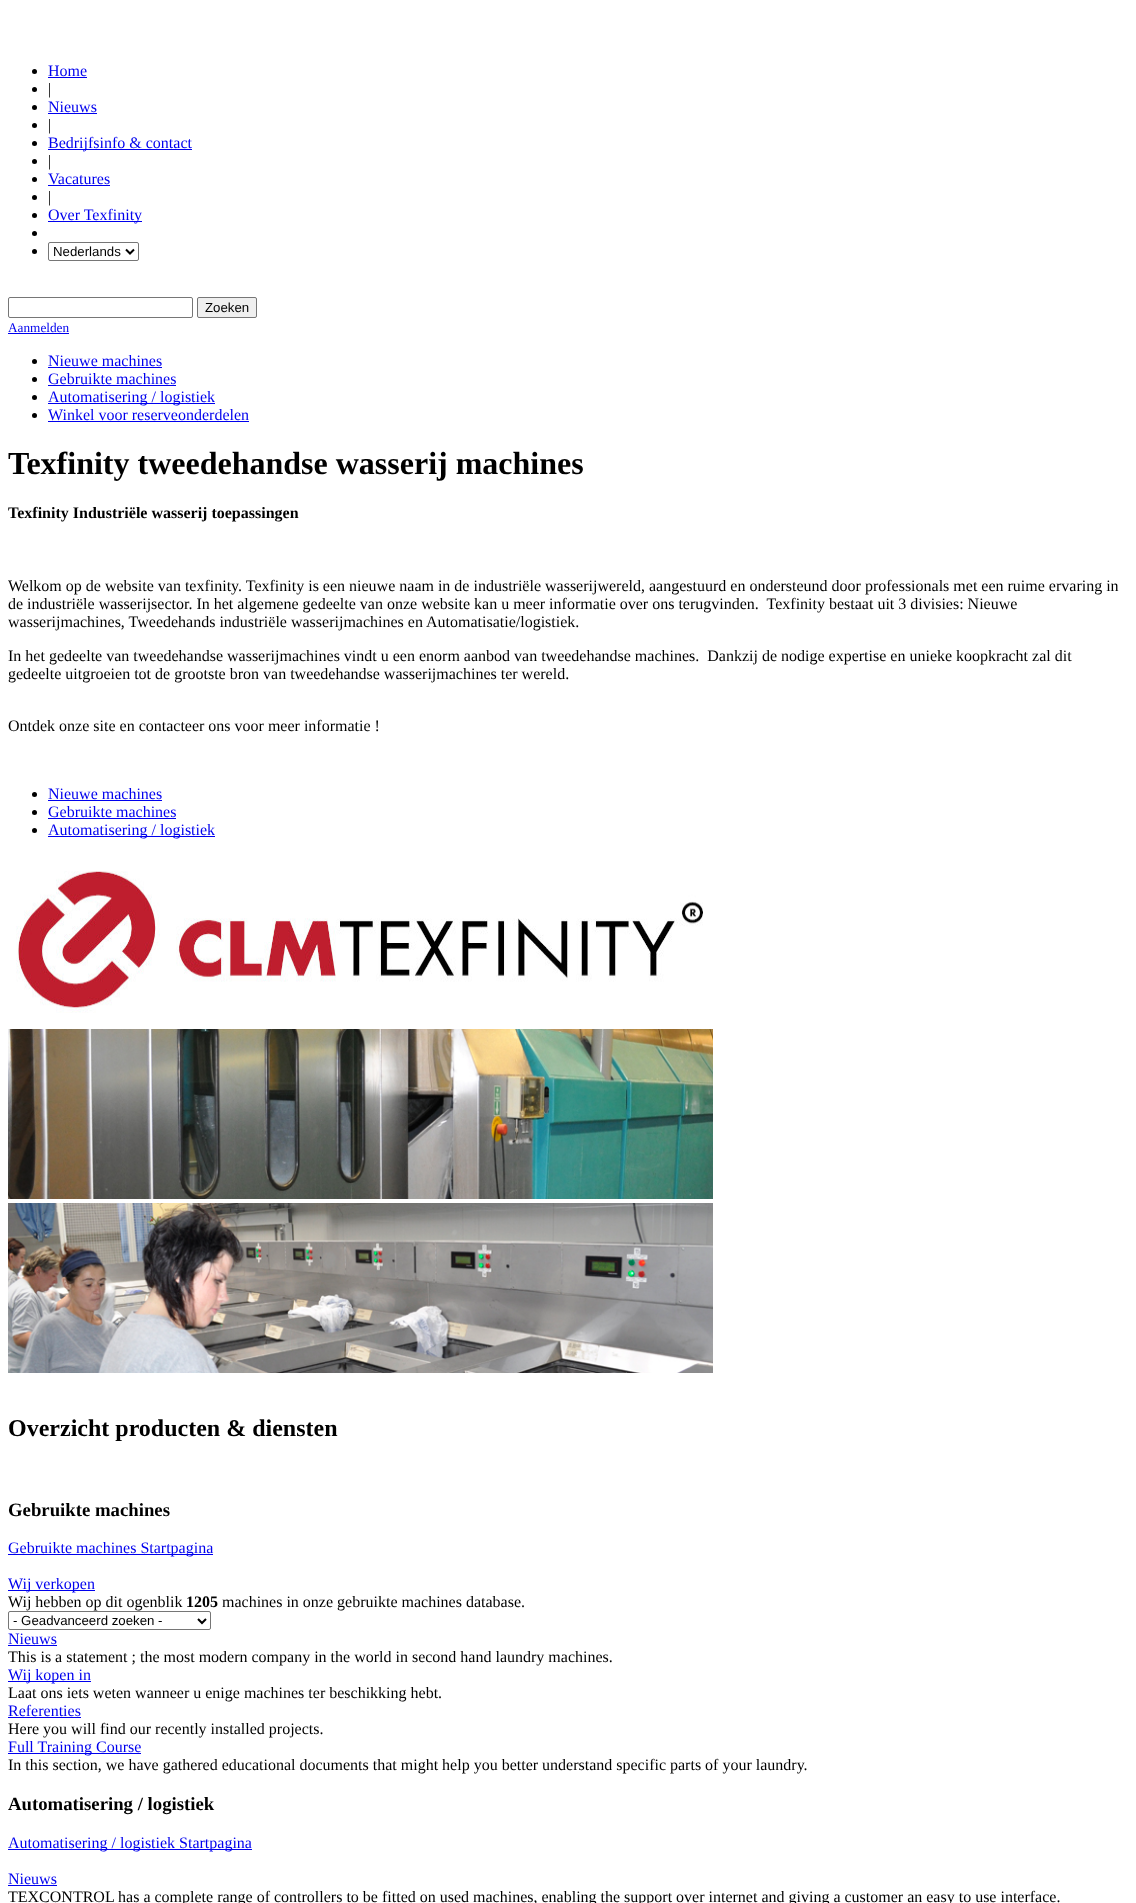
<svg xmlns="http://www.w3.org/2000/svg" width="1136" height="1903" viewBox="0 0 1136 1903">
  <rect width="100%" height="100%" fill="rgb(255,255,255)"/>
  <circle cx="34.5" cy="71.5" r="2.5" fill="rgb(0,0,0)"/>
  <text x="48" y="76" font-family="Liberation Serif" font-size="16" fill="rgb(0,0,238)">Home</text>
  <rect x="48" y="77" width="39" height="1" fill="rgb(0,0,238)"/>
  <circle cx="34.5" cy="89.5" r="2.5" fill="rgb(0,0,0)"/>
  <text x="48" y="94" font-family="Liberation Serif" font-size="16" fill="rgb(0,0,0)">|</text>
  <circle cx="34.5" cy="107.5" r="2.5" fill="rgb(0,0,0)"/>
  <text x="48" y="112" font-family="Liberation Serif" font-size="16" fill="rgb(0,0,238)">Nieuws</text>
  <rect x="48" y="113" width="49" height="1" fill="rgb(0,0,238)"/>
  <circle cx="34.5" cy="125.5" r="2.5" fill="rgb(0,0,0)"/>
  <text x="48" y="130" font-family="Liberation Serif" font-size="16" fill="rgb(0,0,0)">|</text>
  <circle cx="34.5" cy="143.5" r="2.5" fill="rgb(0,0,0)"/>
  <rect x="48" y="149" width="144" height="1" fill="rgb(0,0,238)"/>
  <text x="48" y="148" font-family="Liberation Serif" font-size="16" fill="rgb(0,0,238)">Bedrijfsinfo &amp; contact</text>
  <circle cx="34.5" cy="161.5" r="2.5" fill="rgb(0,0,0)"/>
  <text x="48" y="166" font-family="Liberation Serif" font-size="16" fill="rgb(0,0,0)">|</text>
  <circle cx="34.5" cy="179.5" r="2.5" fill="rgb(0,0,0)"/>
  <text x="48" y="184" font-family="Liberation Serif" font-size="16" fill="rgb(0,0,238)">Vacatures</text>
  <rect x="48" y="185" width="62" height="1" fill="rgb(0,0,238)"/>
  <circle cx="34.5" cy="197.5" r="2.5" fill="rgb(0,0,0)"/>
  <text x="48" y="202" font-family="Liberation Serif" font-size="16" fill="rgb(0,0,0)">|</text>
  <circle cx="34.5" cy="215.5" r="2.5" fill="rgb(0,0,0)"/>
  <rect x="48" y="221" width="94" height="1" fill="rgb(0,0,238)"/>
  <text x="48" y="220" font-family="Liberation Serif" font-size="16" fill="rgb(0,0,238)">Over Texfinity</text>
  <circle cx="34.5" cy="233.5" r="2.5" fill="rgb(0,0,0)"/>
  <circle cx="34.5" cy="251.5" r="2.5" fill="rgb(0,0,0)"/>
  <rect x="48.5" y="242.5" width="90" height="18" rx="1.5" fill="none" stroke="rgb(118,118,118)"/>
  <path d="M126 249.5L130 253.5L134 249.5" fill="none" stroke="rgb(0,0,0)" stroke-width="2"/>
  <text x="53" y="256" font-family="Liberation Sans" font-size="13.25" fill="rgb(0,0,0)">Nederlands</text>
  <rect x="8.5" y="297.5" width="184" height="20" rx="1.5" fill="none" stroke="rgb(118,118,118)"/>
  <rect x="197.5" y="297.5" width="59" height="20" rx="1.5" fill="rgb(239,239,239)" stroke="rgb(118,118,118)"/>
  <text x="205" y="312" font-family="Liberation Sans" font-size="13.25" fill="rgb(0,0,0)">Zoeken</text>
  <text x="8" y="332" font-family="Liberation Serif" font-size="13.25" fill="rgb(0,0,238)">Aanmelden</text>
  <rect x="8" y="333" width="61" height="1" fill="rgb(0,0,238)"/>
  <circle cx="34.5" cy="361.5" r="2.5" fill="rgb(0,0,0)"/>
  <text x="48" y="366" font-family="Liberation Serif" font-size="16" fill="rgb(0,0,238)">Nieuwe machines</text>
  <rect x="48" y="367" width="114" height="1" fill="rgb(0,0,238)"/>
  <circle cx="34.5" cy="379.5" r="2.5" fill="rgb(0,0,0)"/>
  <text x="48" y="384" font-family="Liberation Serif" font-size="16" fill="rgb(0,0,238)">Gebruikte machines</text>
  <rect x="48" y="385" width="128" height="1" fill="rgb(0,0,238)"/>
  <circle cx="34.5" cy="397.5" r="2.5" fill="rgb(0,0,0)"/>
  <rect x="48" y="403" width="167" height="1" fill="rgb(0,0,238)"/>
  <text x="48" y="402" font-family="Liberation Serif" font-size="16" fill="rgb(0,0,238)">Automatisering / logistiek</text>
  <circle cx="34.5" cy="415.5" r="2.5" fill="rgb(0,0,0)"/>
  <text x="48" y="420" font-family="Liberation Serif" font-size="16" fill="rgb(0,0,238)">Winkel voor reserveonderdelen</text>
  <rect x="48" y="421" width="201" height="1" fill="rgb(0,0,238)"/>
  <text x="8" y="474" font-family="Liberation Serif" font-size="32" font-weight="bold" fill="rgb(0,0,0)">Texfinity tweedehandse wasserij machines</text>
  <text x="8" y="518" font-family="Liberation Serif" font-size="16" font-weight="bold" fill="rgb(0,0,0)">Texfinity Industriële wasserij toepassingen</text>
  <g font-family="Liberation Serif" font-size="16" fill="rgb(0,0,0)">
    <text xml:space="preserve"><tspan x="8" y="591">Welkom op de website van texfinity. Texfinity is een nieuwe naam in de industriële wasserijwereld, aangestuurd en ondersteund door professionals met een ruime ervaring in</tspan><tspan x="8" y="609">de industriële wasserijsector. In het algemene gedeelte van onze website kan u meer informatie over ons terugvinden.  Texfinity bestaat uit 3 divisies: Nieuwe</tspan><tspan x="8" y="627">wasserijmachines, Tweedehands industriële wasserijmachines en Automatisatie/logistiek.</tspan></text>
    <text xml:space="preserve"><tspan x="8" y="661">In het gedeelte van tweedehandse wasserijmachines vindt u een enorm aanbod van tweedehandse machines.  Dankzij de nodige expertise en unieke koopkracht zal dit</tspan><tspan x="8" y="679">gedeelte uitgroeien tot de grootste bron van tweedehandse wasserijmachines ter wereld.</tspan></text>
    <text x="8" y="731">Ontdek onze site en contacteer ons voor meer informatie !</text>
  </g>
  <circle cx="34.5" cy="794.5" r="2.5" fill="rgb(0,0,0)"/>
  <text x="48" y="799" font-family="Liberation Serif" font-size="16" fill="rgb(0,0,238)">Nieuwe machines</text>
  <rect x="48" y="800" width="114" height="1" fill="rgb(0,0,238)"/>
  <circle cx="34.5" cy="812.5" r="2.5" fill="rgb(0,0,0)"/>
  <text x="48" y="817" font-family="Liberation Serif" font-size="16" fill="rgb(0,0,238)">Gebruikte machines</text>
  <rect x="48" y="818" width="128" height="1" fill="rgb(0,0,238)"/>
  <circle cx="34.5" cy="830.5" r="2.5" fill="rgb(0,0,0)"/>
  <rect x="48" y="836" width="167" height="1" fill="rgb(0,0,238)"/>
  <text x="48" y="835" font-family="Liberation Serif" font-size="16" fill="rgb(0,0,238)">Automatisering / logistiek</text>
  <image x="16" y="871" width="687" height="142" href="pic1.png"/>
  <image x="8" y="1029" width="705" height="170" href="pic2.png"/>
  <image x="8" y="1203" width="705" height="170" href="pic3.png"/>
  <text x="8" y="1436" font-family="Liberation Serif" font-size="24" font-weight="bold" fill="rgb(0,0,0)">Overzicht producten &amp; diensten</text>
  <text x="8" y="1516" font-family="Liberation Serif" font-size="18.75" font-weight="bold" fill="rgb(0,0,0)">Gebruikte machines</text>
  <rect x="8" y="1554" width="205" height="1" fill="rgb(0,0,238)"/>
  <text x="8" y="1553" font-family="Liberation Serif" font-size="16" fill="rgb(0,0,238)">Gebruikte machines Startpagina</text>
  <rect x="8" y="1590" width="87" height="1" fill="rgb(0,0,238)"/>
  <text x="8" y="1589" font-family="Liberation Serif" font-size="16" fill="rgb(0,0,238)">Wij verkopen</text>
  <text x="8" y="1607" font-family="Liberation Serif" font-size="16" fill="rgb(0,0,0)">Wij hebben op dit ogenblik</text>
  <text x="186" y="1607" font-family="Liberation Serif" font-size="16" font-weight="bold" fill="rgb(0,0,0)">1205</text>
  <text x="222" y="1607" font-family="Liberation Serif" font-size="16" fill="rgb(0,0,0)">machines in onze gebruikte machines database.</text>
  <rect x="8.5" y="1611.5" width="202" height="18" rx="1.5" fill="none" stroke="rgb(118,118,118)"/>
  <path d="M198 1619L202 1623L206 1619" fill="none" stroke="rgb(0,0,0)" stroke-width="2"/>
  <text x="13" y="1625" font-family="Liberation Sans" font-size="13.25" fill="rgb(0,0,0)">- Geadvanceerd zoeken -</text>
  <text x="8" y="1644" font-family="Liberation Serif" font-size="16" fill="rgb(0,0,238)">Nieuws</text>
  <rect x="8" y="1645" width="49" height="1" fill="rgb(0,0,238)"/>
  <text x="8" y="1662" font-family="Liberation Serif" font-size="16" fill="rgb(0,0,0)">This is a statement ; the most modern company in the world in second hand laundry machines.</text>
  <rect x="8" y="1681" width="83" height="1" fill="rgb(0,0,238)"/>
  <text x="8" y="1680" font-family="Liberation Serif" font-size="16" fill="rgb(0,0,238)">Wij kopen in</text>
  <text x="8" y="1698" font-family="Liberation Serif" font-size="16" fill="rgb(0,0,0)">Laat ons iets weten wanneer u enige machines ter beschikking hebt.</text>
  <text x="8" y="1716" font-family="Liberation Serif" font-size="16" fill="rgb(0,0,238)">Referenties</text>
  <rect x="8" y="1717" width="73" height="1" fill="rgb(0,0,238)"/>
  <text x="8" y="1734" font-family="Liberation Serif" font-size="16" fill="rgb(0,0,0)">Here you will find our recently installed projects.</text>
  <rect x="8" y="1753" width="133" height="1" fill="rgb(0,0,238)"/>
  <text x="8" y="1752" font-family="Liberation Serif" font-size="16" fill="rgb(0,0,238)">Full Training Course</text>
  <text x="8" y="1770" font-family="Liberation Serif" font-size="16" fill="rgb(0,0,0)">In this section, we have gathered educational documents that might help you better understand specific parts of your laundry.</text>
  <text x="8" y="1810" font-family="Liberation Serif" font-size="18.75" font-weight="bold" fill="rgb(0,0,0)">Automatisering / logistiek</text>
  <rect x="8" y="1849" width="244" height="1" fill="rgb(0,0,238)"/>
  <g font-family="Liberation Serif" font-size="16" fill="rgb(0,0,238)">
    <text x="8" y="1848">Automatisering / logistiek Startpagina</text>
    <text x="8" y="1884">Nieuws</text>
  </g>
  <rect x="8" y="1885" width="49" height="1" fill="rgb(0,0,238)"/>
  <text x="8" y="1902" font-family="Liberation Serif" font-size="16" fill="rgb(0,0,0)">TEXCONTROL has a complete range of controllers to be fitted on used machines, enabling the support over internet and giving a customer an easy to use interface.</text>
</svg>
